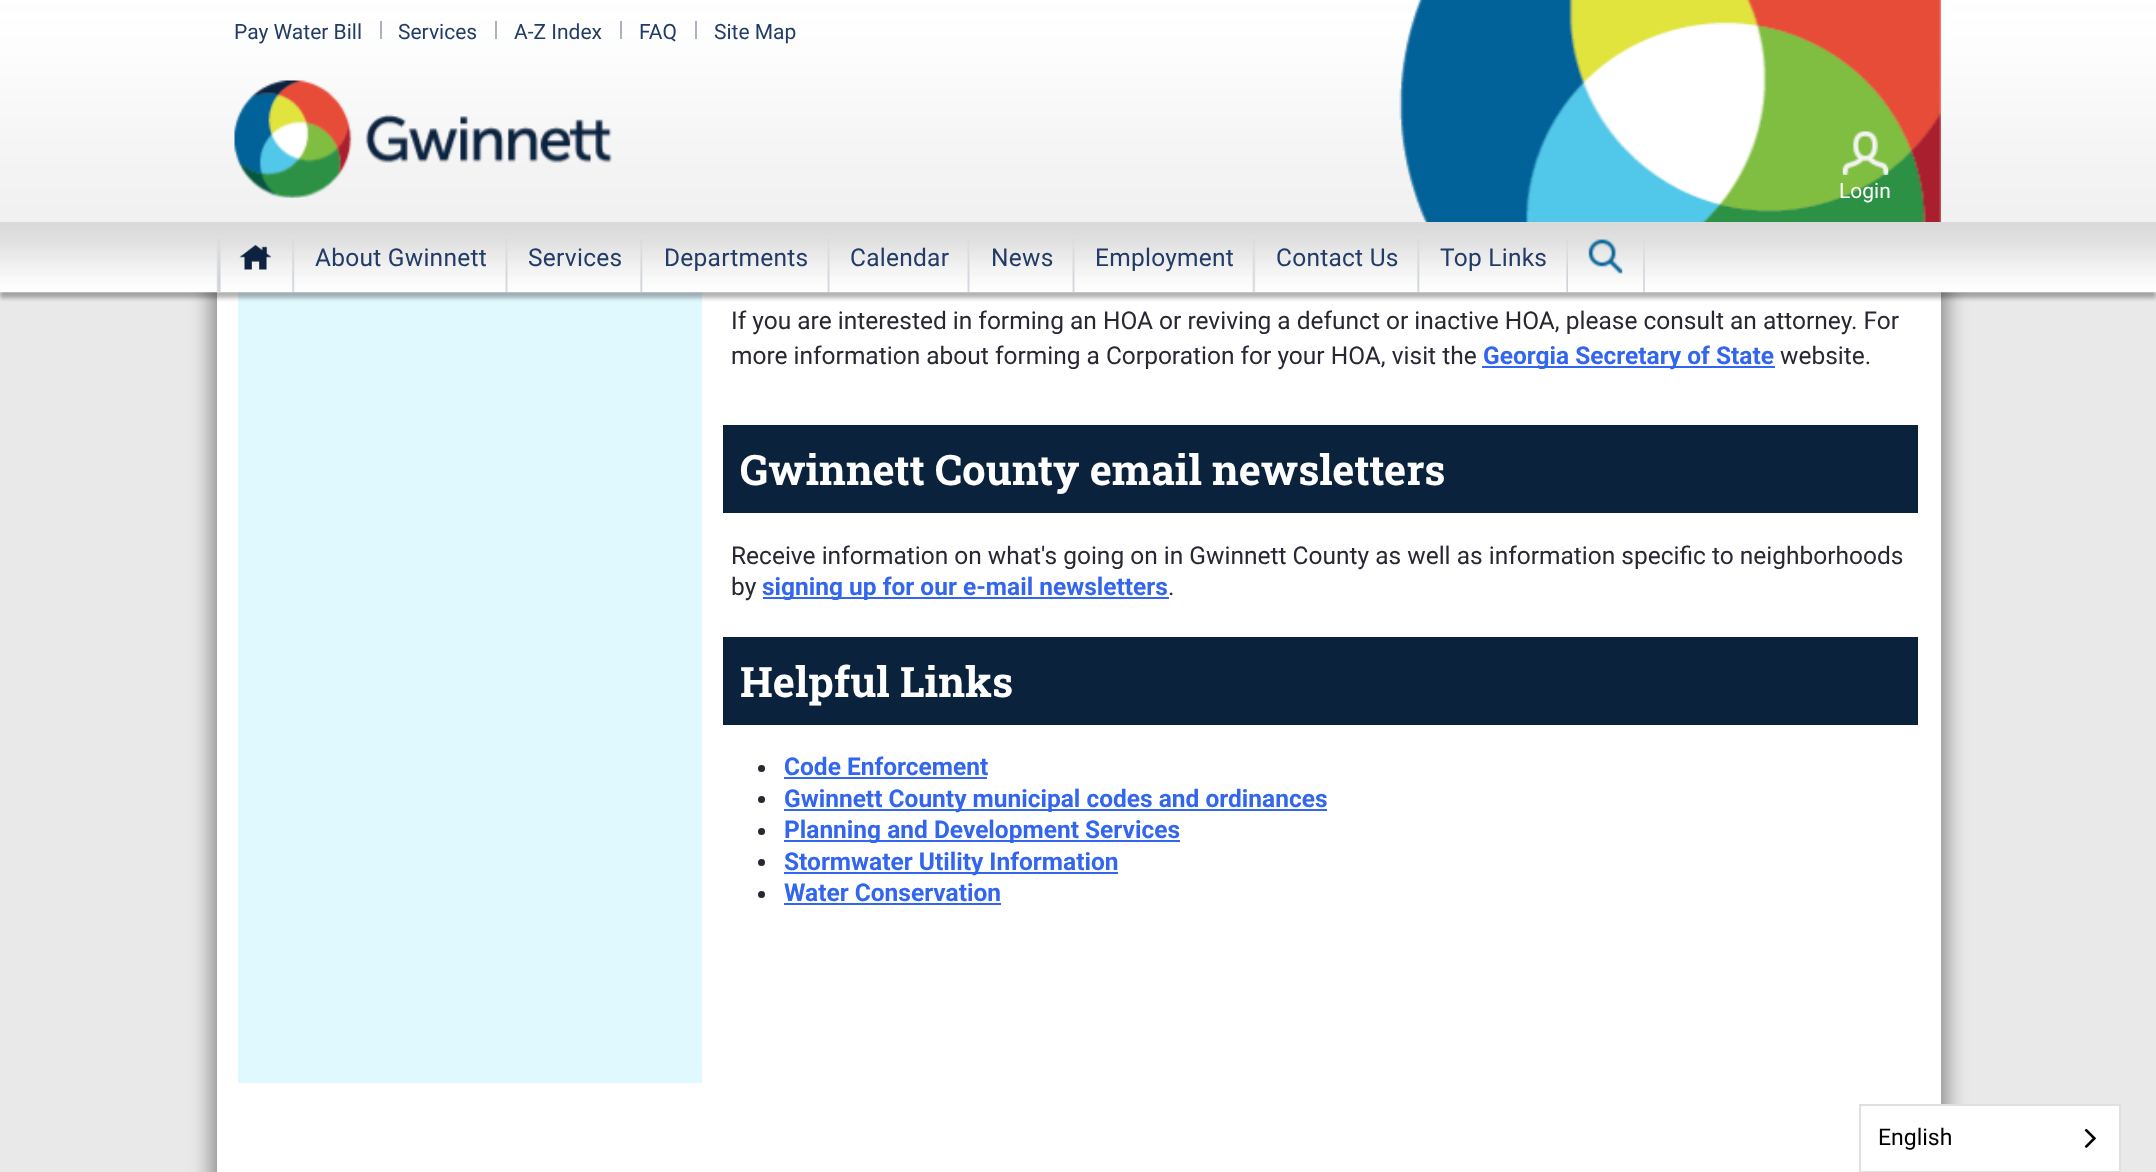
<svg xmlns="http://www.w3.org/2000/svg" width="2156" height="1172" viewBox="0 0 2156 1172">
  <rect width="100%" height="100%" fill="rgb(233,233,233)"/>
  <rect x="208" y="-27" width="1724" height="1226" fill="rgba(0,0,0,0.3)" filter="blur(9px)"/>
  <rect x="226" y="-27" width="1724" height="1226" fill="rgba(0,0,0,0.3)" filter="blur(9px)"/>
  <rect x="217" y="292" width="1724" height="880" fill="rgb(255,255,255)"/>
  <rect x="238" y="292" width="464" height="791" fill="rgb(224,249,255)"/>
  <rect x="0" y="5" width="2156" height="293" fill="rgba(0,0,0,0.3)" filter="blur(2px)"/>
  <image x="0" y="0" width="2156" height="222" href="pic1.png"/>
  <image x="1399" y="0" width="542" height="222" href="pic2.png"/>
  <text x="234" y="39" font-family="Roboto" font-size="21" fill="rgb(34,60,103)">Pay Water Bill</text>
  <rect x="380" y="21" width="2" height="18" fill="rgb(171,178,190)"/>
  <text x="398" y="39" font-family="Roboto" font-size="21" fill="rgb(34,60,103)">Services</text>
  <rect x="495" y="21" width="2" height="18" fill="rgb(171,178,190)"/>
  <text x="514" y="39" font-family="Roboto" font-size="21" fill="rgb(34,60,103)">A-Z Index</text>
  <rect x="620" y="21" width="2" height="18" fill="rgb(171,178,190)"/>
  <text x="639" y="39" font-family="Roboto" font-size="21" fill="rgb(34,60,103)">FAQ</text>
  <rect x="695" y="21" width="2" height="18" fill="rgb(171,178,190)"/>
  <text x="714" y="39" font-family="Roboto" font-size="21" fill="rgb(34,60,103)">Site Map</text>
  <image x="234" y="80" width="378" height="118" href="pic3.png"/>
  <image x="1842" y="131" width="47" height="44" href="pic4.png"/>
  <text x="1839" y="198" font-family="Roboto" font-size="21" fill="rgb(255,255,255)">Login</text>
  <image x="0" y="222" width="2156" height="71" href="pic5.png"/>
  <image x="216" y="239" width="5" height="54" href="pic6.png"/>
  <image x="292" y="239" width="3" height="53" href="pic7.png"/>
  <image x="239" y="245" width="33" height="25" href="pic8.png"/>
  <image x="505" y="238" width="3" height="54" href="pic9.png"/>
  <text x="315" y="266" font-family="Roboto" font-size="24.5" letter-spacing="0.25" fill="rgb(34,60,103)">About Gwinnett</text>
  <image x="640" y="239" width="3" height="53" href="pic10.png"/>
  <text x="528" y="266" font-family="Roboto" font-size="24.5" letter-spacing="0.25" fill="rgb(34,60,103)">Services</text>
  <image x="827" y="238" width="3" height="54" href="pic9.png"/>
  <text x="664" y="266" font-family="Roboto" font-size="24.5" letter-spacing="0.25" fill="rgb(34,60,103)">Departments</text>
  <image x="967" y="238" width="3" height="54" href="pic9.png"/>
  <text x="850" y="266" font-family="Roboto" font-size="24.5" letter-spacing="0.25" fill="rgb(34,60,103)">Calendar</text>
  <image x="1072" y="238" width="3" height="54" href="pic9.png"/>
  <text x="991" y="266" font-family="Roboto" font-size="24.5" letter-spacing="0.25" fill="rgb(34,60,103)">News</text>
  <image x="1252" y="239" width="4" height="53" href="pic11.png"/>
  <text x="1095" y="266" font-family="Roboto" font-size="24.5" letter-spacing="0.25" fill="rgb(34,60,103)">Employment</text>
  <image x="1417" y="239" width="3" height="53" href="pic10.png"/>
  <text x="1276" y="266" font-family="Roboto" font-size="24.5" letter-spacing="0.25" fill="rgb(34,60,103)">Contact Us</text>
  <image x="1566" y="239" width="2" height="53" href="pic12.png"/>
  <text x="1440" y="266" font-family="Roboto" font-size="24.5" letter-spacing="0.25" fill="rgb(34,60,103)">Top Links</text>
  <image x="1643" y="239" width="2" height="53" href="pic13.png"/>
  <image x="1588" y="239" width="35" height="36" href="pic14.png"/>
  <g font-family="Roboto" font-size="24.5" fill="rgb(39,40,51)">
    <text>
      <tspan x="731" y="329">If you are interested in forming an HOA or reviving a defunct or inactive HOA, please consult an attorney. For</tspan>
      <tspan x="731" y="364">more information about forming a Corporation for your HOA, visit the</tspan>
    </text>
  </g>
  <rect x="1482" y="366" width="293" height="2" fill="rgb(51,102,238)"/>
  <text x="1483" y="364" font-family="Roboto" font-size="24.5" font-weight="bold" fill="rgb(51,102,238)">Georgia Secretary of State</text>
  <text x="1780" y="364" font-family="Roboto" font-size="24.5" fill="rgb(39,40,51)">website.</text>
  <rect x="723" y="425" width="1195" height="88" fill="rgb(11,34,61)"/>
  <text x="740" y="485" font-family="Roboto Slab" font-size="42" font-weight="bold" fill="rgb(255,255,255)">Gwinnett County email newsletters</text>
  <g font-family="Roboto" font-size="24.5" fill="rgb(39,40,51)">
    <text>
      <tspan x="731" y="564">Receive information on what's going on in Gwinnett County as well as information specific to neighborhoods</tspan>
      <tspan x="731" y="595">by</tspan>
    </text>
  </g>
  <rect x="763" y="597" width="406" height="2" fill="rgb(51,102,238)"/>
  <text x="762" y="595" font-family="Roboto" font-size="24.5" font-weight="bold" fill="rgb(51,102,238)">signing up for our e-mail newsletters</text>
  <text x="1168" y="595" font-family="Roboto" font-size="24.5" fill="rgb(39,40,51)">.</text>
  <rect x="723" y="637" width="1195" height="88" fill="rgb(11,34,61)"/>
  <text x="740" y="697" font-family="Roboto Slab" font-size="42" font-weight="bold" fill="rgb(255,255,255)">Helpful Links</text>
  <circle cx="761.5" cy="768.5" r="3.5" fill="rgb(39,40,51)"/>
  <text x="784" y="775" font-family="Roboto" font-size="24.5" font-weight="bold" fill="rgb(51,102,238)">Code Enforcement</text>
  <rect x="784" y="777" width="203" height="2" fill="rgb(51,102,238)"/>
  <circle cx="761.5" cy="799.5" r="3.5" fill="rgb(39,40,51)"/>
  <rect x="784" y="809" width="543" height="2" fill="rgb(51,102,238)"/>
  <text x="784" y="807" font-family="Roboto" font-size="24.5" font-weight="bold" fill="rgb(51,102,238)">Gwinnett County municipal codes and ordinances</text>
  <circle cx="761.5" cy="831.5" r="3.5" fill="rgb(39,40,51)"/>
  <rect x="784" y="840" width="396" height="2" fill="rgb(51,102,238)"/>
  <text x="784" y="838" font-family="Roboto" font-size="24.5" font-weight="bold" fill="rgb(51,102,238)">Planning and Development Services</text>
  <circle cx="761.5" cy="862.5" r="3.5" fill="rgb(39,40,51)"/>
  <rect x="784" y="872" width="334" height="2" fill="rgb(51,102,238)"/>
  <text x="784" y="870" font-family="Roboto" font-size="24.5" font-weight="bold" fill="rgb(51,102,238)">Stormwater Utility Information</text>
  <circle cx="761.5" cy="894.5" r="3.5" fill="rgb(39,40,51)"/>
  <text x="784" y="901" font-family="Roboto" font-size="24.5" font-weight="bold" fill="rgb(51,102,238)">Water Conservation</text>
  <rect x="784" y="903" width="217" height="2" fill="rgb(51,102,238)"/>
  <rect x="1941" y="1106" width="178" height="65" fill="rgb(255,255,255)"/>
  <rect x="1860" y="1105" width="260" height="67" fill="none" stroke="rgb(224,224,224)" stroke-width="2"/>
  <text x="1878" y="1145" font-family="Roboto" font-size="23" fill="rgb(0,0,0)">English</text>
  <image x="2084" y="1128" width="12" height="20" href="pic15.png"/>
</svg>
